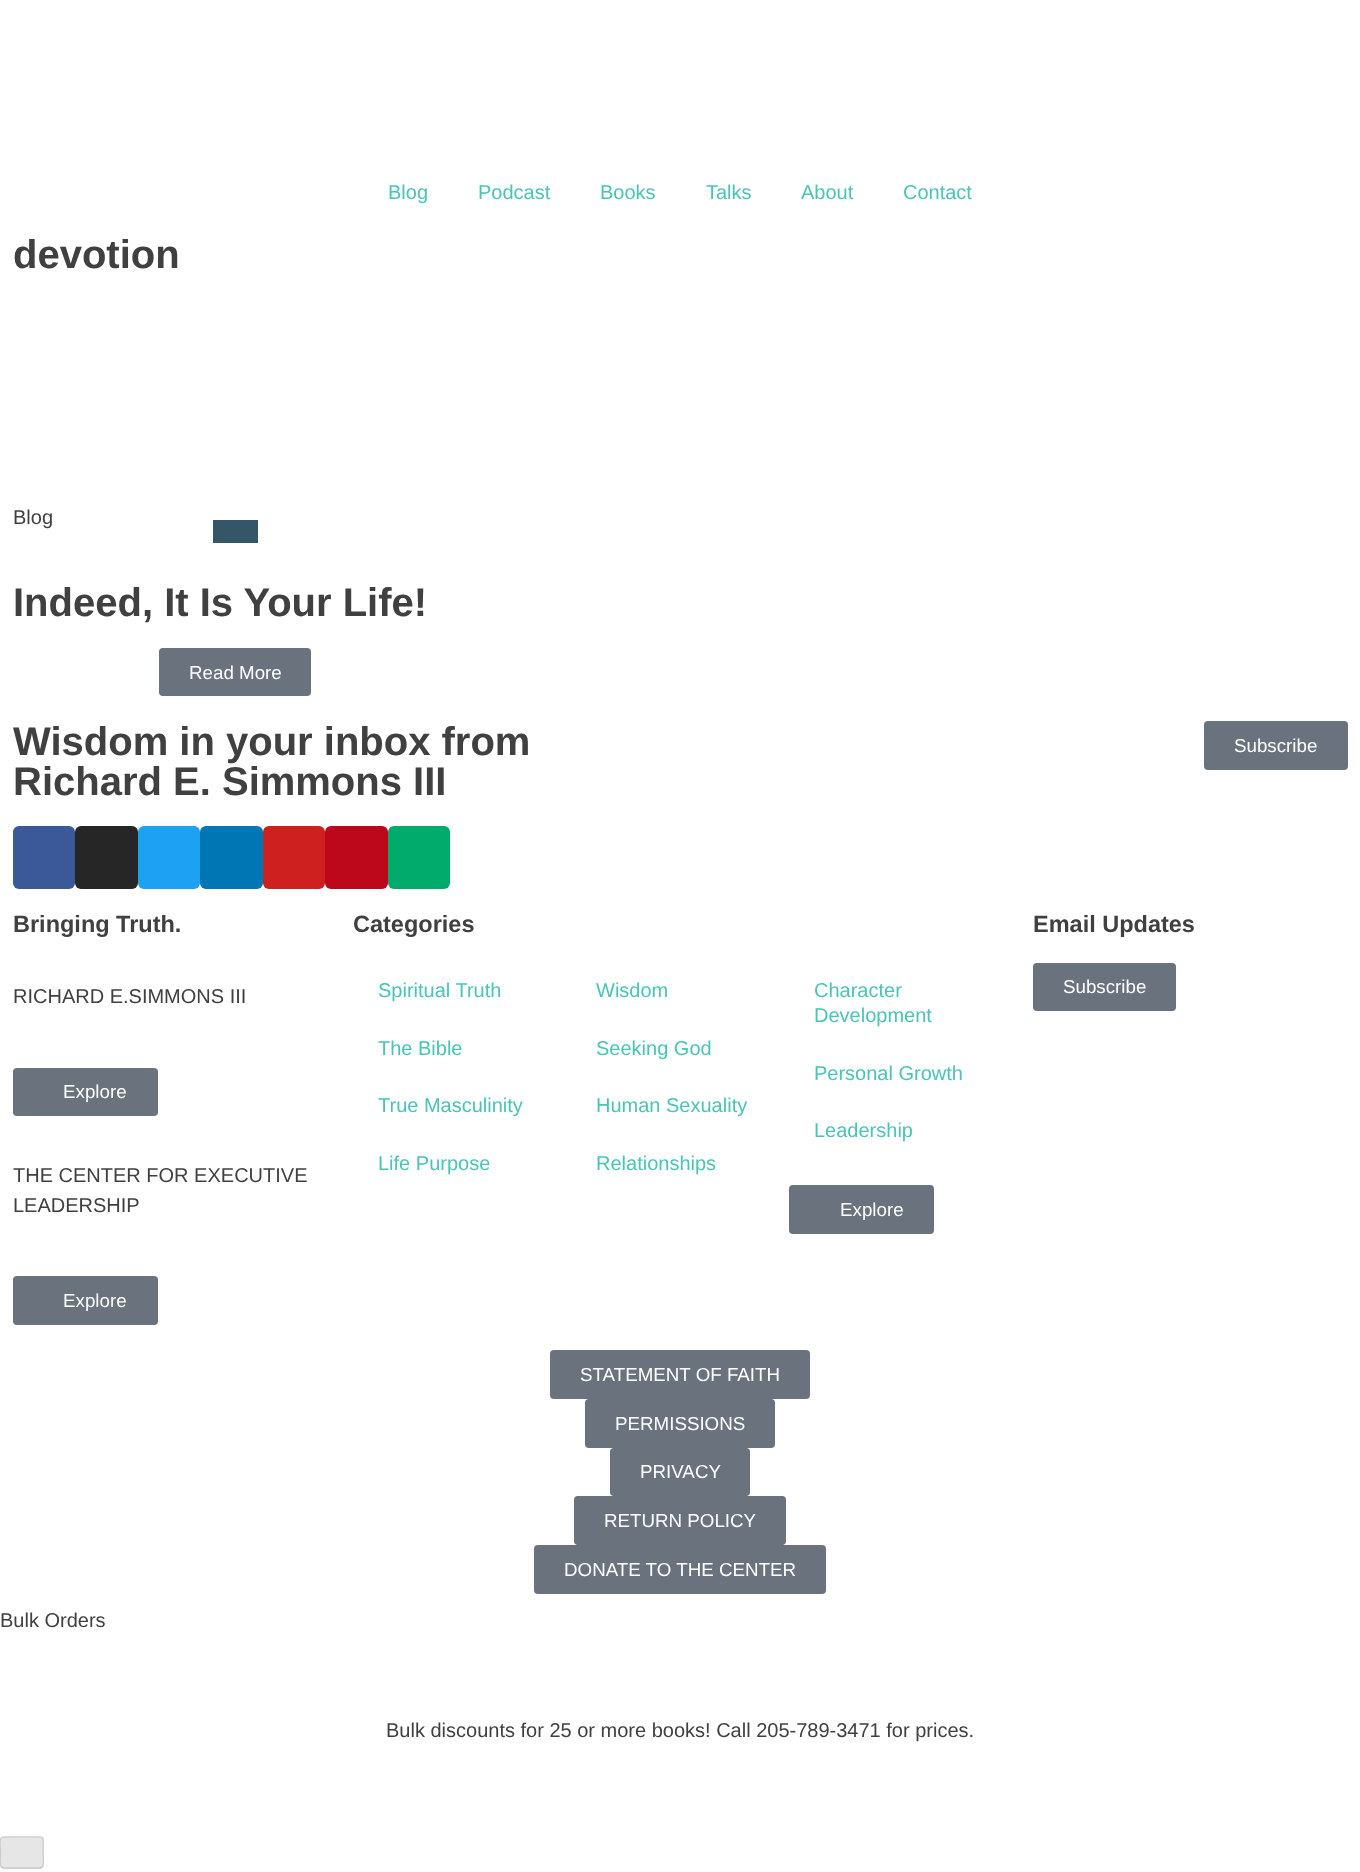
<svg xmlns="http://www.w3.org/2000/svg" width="1360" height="1872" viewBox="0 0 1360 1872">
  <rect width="100%" height="100%" fill="rgb(255,255,255)"/>
  <g font-family="Liberation Sans" font-size="20" fill="rgb(73,197,182)">
    <text x="388" y="199">Blog</text>
    <text x="478" y="199">Podcast</text>
    <text x="600" y="199">Books</text>
    <text x="706" y="199">Talks</text>
    <text x="801" y="199">About</text>
    <text x="903" y="199">Contact</text>
  </g>
  <text x="13" y="268" font-family="Liberation Sans" font-size="40" font-weight="bold" fill="rgb(64,64,64)">devotion</text>
  <text x="13" y="524" font-family="Liberation Sans" font-size="20" fill="rgb(64,64,64)">Blog</text>
  <rect x="213" y="520" width="45" height="23" fill="rgb(53,85,105)"/>
  <text x="13" y="616" font-family="Liberation Sans" font-size="40" font-weight="bold" fill="rgb(64,64,64)">Indeed, It Is Your Life!</text>
  <rect x="159" y="648" width="152" height="48" rx="4" fill="rgb(105,114,125)"/>
  <text x="189" y="679" font-family="Liberation Sans" font-size="18.75" fill="rgb(255,255,255)">Read More</text>
  <g font-family="Liberation Sans" font-size="40" font-weight="bold" fill="rgb(64,64,64)">
    <text>
      <tspan x="13" y="755">Wisdom in your inbox from</tspan>
      <tspan x="13" y="795">Richard E. Simmons III</tspan>
    </text>
  </g>
  <rect x="1204" y="721" width="144" height="49" rx="4" fill="rgb(105,114,125)"/>
  <text x="1234" y="752" font-family="Liberation Sans" font-size="18.75" fill="rgb(255,255,255)">Subscribe</text>
  <rect x="13" y="826" width="62" height="63" rx="6" fill="rgb(59,89,152)"/>
  <rect x="75" y="826" width="63" height="63" rx="6" fill="rgb(38,38,38)"/>
  <rect x="138" y="826" width="62" height="63" rx="6" fill="rgb(29,161,242)"/>
  <rect x="200" y="826" width="63" height="63" rx="6" fill="rgb(0,119,181)"/>
  <rect x="263" y="826" width="62" height="63" rx="6" fill="rgb(205,32,31)"/>
  <rect x="325" y="826" width="63" height="63" rx="6" fill="rgb(189,8,28)"/>
  <rect x="388" y="826" width="62" height="63" rx="6" fill="rgb(0,171,107)"/>
  <text x="13" y="932" font-family="Liberation Sans" font-size="23.5" font-weight="bold" fill="rgb(64,64,64)">Bringing Truth.</text>
  <text x="13" y="1003" font-family="Liberation Sans" font-size="20" fill="rgb(64,64,64)">RICHARD E.SIMMONS III</text>
  <rect x="13" y="1068" width="145" height="48" rx="4" fill="rgb(105,114,125)"/>
  <text x="63" y="1098" font-family="Liberation Sans" font-size="18.75" fill="rgb(255,255,255)">Explore</text>
  <g font-family="Liberation Sans" font-size="20" fill="rgb(64,64,64)">
    <text>
      <tspan x="13" y="1182">THE CENTER FOR EXECUTIVE</tspan>
      <tspan x="13" y="1212">LEADERSHIP</tspan>
    </text>
  </g>
  <rect x="13" y="1276" width="145" height="49" rx="4" fill="rgb(105,114,125)"/>
  <text x="63" y="1307" font-family="Liberation Sans" font-size="18.75" fill="rgb(255,255,255)">Explore</text>
  <text x="353" y="932" font-family="Liberation Sans" font-size="23.5" font-weight="bold" fill="rgb(64,64,64)">Categories</text>
  <g font-family="Liberation Sans" font-size="20" fill="rgb(73,197,182)">
    <text x="378" y="997">Spiritual Truth</text>
    <text x="378" y="1055">The Bible</text>
    <text x="378" y="1112">True Masculinity</text>
    <text x="378" y="1170">Life Purpose</text>
    <text x="596" y="997">Wisdom</text>
    <text x="596" y="1055">Seeking God</text>
    <text x="596" y="1112">Human Sexuality</text>
    <text x="596" y="1170">Relationships</text>
    <text>
      <tspan x="814" y="997">Character</tspan>
      <tspan x="814" y="1022">Development</tspan>
    </text>
    <text x="814" y="1080">Personal Growth</text>
    <text x="814" y="1137">Leadership</text>
  </g>
  <rect x="789" y="1185" width="145" height="49" rx="4" fill="rgb(105,114,125)"/>
  <text x="840" y="1216" font-family="Liberation Sans" font-size="18.75" fill="rgb(255,255,255)">Explore</text>
  <text x="1033" y="932" font-family="Liberation Sans" font-size="23.5" font-weight="bold" fill="rgb(64,64,64)">Email Updates</text>
  <rect x="1033" y="963" width="143" height="48" rx="4" fill="rgb(105,114,125)"/>
  <text x="1063" y="993" font-family="Liberation Sans" font-size="18.75" fill="rgb(255,255,255)">Subscribe</text>
  <rect x="550" y="1350" width="260" height="49" rx="4" fill="rgb(105,114,125)"/>
  <text x="580" y="1381" font-family="Liberation Sans" font-size="18.75" fill="rgb(255,255,255)">STATEMENT OF FAITH</text>
  <rect x="585" y="1399" width="190" height="49" rx="4" fill="rgb(105,114,125)"/>
  <text x="615" y="1430" font-family="Liberation Sans" font-size="18.75" fill="rgb(255,255,255)">PERMISSIONS</text>
  <rect x="610" y="1448" width="140" height="48" rx="4" fill="rgb(105,114,125)"/>
  <text x="640" y="1478" font-family="Liberation Sans" font-size="18.75" fill="rgb(255,255,255)">PRIVACY</text>
  <rect x="574" y="1496" width="212" height="49" rx="4" fill="rgb(105,114,125)"/>
  <text x="604" y="1527" font-family="Liberation Sans" font-size="18.75" fill="rgb(255,255,255)">RETURN POLICY</text>
  <rect x="534" y="1545" width="292" height="49" rx="4" fill="rgb(105,114,125)"/>
  <text x="564" y="1576" font-family="Liberation Sans" font-size="18.75" fill="rgb(255,255,255)">DONATE TO THE CENTER</text>
  <g font-family="Liberation Sans" font-size="20" fill="rgb(64,64,64)">
    <text x="0" y="1627">Bulk Orders</text>
    <text x="386" y="1737">Bulk discounts for 25 or more books! Call 205-789-3471 for prices.</text>
  </g>
  <rect x="0" y="1836" width="44" height="33" rx="4" fill="rgb(230,230,230)"/>
  <path d="M42 1867L40 1868H4L1.5 1867" fill="none" stroke="rgb(187,187,187)" stroke-width="1.2"/>
  <path d="M1.5 1867C-.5 1865 .5 1855.5 .5 1852.5C.5 1838-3 1837 10 1837H34C46.5 1837 43 1838 43 1852.5C43 1855.5 44.5 1865 42 1867" fill="none" stroke="rgb(204,204,204)" stroke-width="1.2"/>
</svg>
